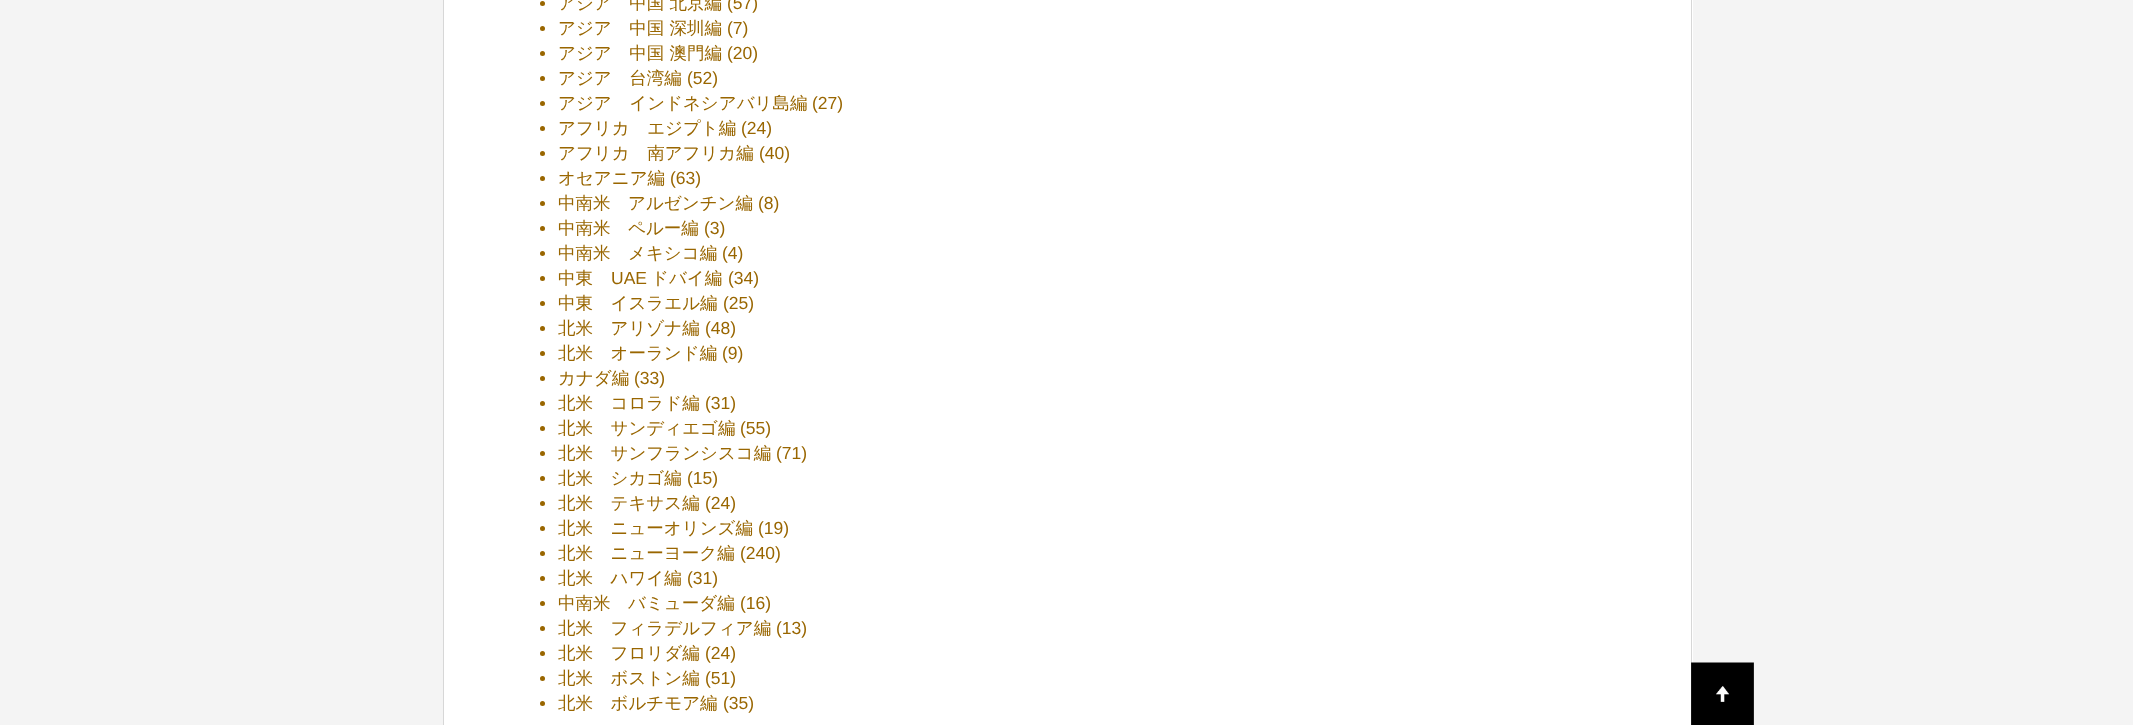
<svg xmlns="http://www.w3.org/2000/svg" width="2133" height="725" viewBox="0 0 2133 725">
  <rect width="100%" height="100%" fill="rgb(244,244,244)"/>
  <rect x="444" y="0" width="1249" height="725" fill="rgb(255,255,255)"/>
  <rect x="1691" y="0" width="1" height="725" fill="rgb(215,215,215)"/>
  <rect x="443" y="0" width="1" height="725" fill="rgb(215,215,215)"/>
  <circle cx="542.5" cy="3.5" r="2.5" fill="rgb(153,102,0)"/>
  <text x="558" y="9" font-family="WenQuanYi Zen Hei" font-size="17.5" font-weight="500" fill="rgb(153,102,0)">アジア　中国 北京編</text>
  <text x="727" y="9" font-family="Liberation Sans" font-size="17.5" fill="rgb(153,102,0)">(57)</text>
  <circle cx="542.5" cy="28.5" r="2.5" fill="rgb(153,102,0)"/>
  <text x="558" y="34" font-family="WenQuanYi Zen Hei" font-size="17.5" font-weight="500" fill="rgb(153,102,0)">アジア　中国 深圳編</text>
  <text x="727" y="34" font-family="Liberation Sans" font-size="17.5" fill="rgb(153,102,0)">(7)</text>
  <circle cx="542.5" cy="53.5" r="2.5" fill="rgb(153,102,0)"/>
  <text x="558" y="59" font-family="WenQuanYi Zen Hei" font-size="17.5" font-weight="500" fill="rgb(153,102,0)">アジア　中国 澳門編</text>
  <text x="727" y="59" font-family="Liberation Sans" font-size="17.5" fill="rgb(153,102,0)">(20)</text>
  <circle cx="542.5" cy="78.5" r="2.5" fill="rgb(153,102,0)"/>
  <text x="558" y="84" font-family="WenQuanYi Zen Hei" font-size="17.5" font-weight="500" fill="rgb(153,102,0)">アジア　台湾編</text>
  <text x="687" y="84" font-family="Liberation Sans" font-size="17.5" fill="rgb(153,102,0)">(52)</text>
  <circle cx="542.5" cy="103.5" r="2.5" fill="rgb(153,102,0)"/>
  <text x="558" y="109" font-family="WenQuanYi Zen Hei" font-size="17.5" font-weight="500" fill="rgb(153,102,0)">アジア　インドネシアバリ島編</text>
  <text x="812" y="109" font-family="Liberation Sans" font-size="17.5" fill="rgb(153,102,0)">(27)</text>
  <circle cx="542.5" cy="128.5" r="2.5" fill="rgb(153,102,0)"/>
  <text x="558" y="134" font-family="WenQuanYi Zen Hei" font-size="17.5" font-weight="500" fill="rgb(153,102,0)">アフリカ　エジプト編</text>
  <text x="741" y="134" font-family="Liberation Sans" font-size="17.5" fill="rgb(153,102,0)">(24)</text>
  <circle cx="542.5" cy="153.5" r="2.5" fill="rgb(153,102,0)"/>
  <text x="558" y="159" font-family="WenQuanYi Zen Hei" font-size="17.5" font-weight="500" fill="rgb(153,102,0)">アフリカ　南アフリカ編</text>
  <text x="759" y="159" font-family="Liberation Sans" font-size="17.5" fill="rgb(153,102,0)">(40)</text>
  <circle cx="542.5" cy="178.5" r="2.5" fill="rgb(153,102,0)"/>
  <text x="558" y="184" font-family="WenQuanYi Zen Hei" font-size="17.5" font-weight="500" fill="rgb(153,102,0)">オセアニア編</text>
  <text x="670" y="184" font-family="Liberation Sans" font-size="17.5" fill="rgb(153,102,0)">(63)</text>
  <circle cx="542.5" cy="203.5" r="2.5" fill="rgb(153,102,0)"/>
  <text x="558" y="209" font-family="WenQuanYi Zen Hei" font-size="17.5" font-weight="500" fill="rgb(153,102,0)">中南米　アルゼンチン編</text>
  <text x="758" y="209" font-family="Liberation Sans" font-size="17.5" fill="rgb(153,102,0)">(8)</text>
  <circle cx="542.5" cy="228.5" r="2.5" fill="rgb(153,102,0)"/>
  <text x="558" y="234" font-family="WenQuanYi Zen Hei" font-size="17.5" font-weight="500" fill="rgb(153,102,0)">中南米　ペルー編</text>
  <text x="704" y="234" font-family="Liberation Sans" font-size="17.5" fill="rgb(153,102,0)">(3)</text>
  <circle cx="542.5" cy="253.5" r="2.5" fill="rgb(153,102,0)"/>
  <text x="558" y="259" font-family="WenQuanYi Zen Hei" font-size="17.5" font-weight="500" fill="rgb(153,102,0)">中南米　メキシコ編</text>
  <text x="722" y="259" font-family="Liberation Sans" font-size="17.5" fill="rgb(153,102,0)">(4)</text>
  <circle cx="542.5" cy="278.5" r="2.5" fill="rgb(153,102,0)"/>
  <text x="558" y="284" font-family="WenQuanYi Zen Hei" font-size="17.5" font-weight="500" fill="rgb(153,102,0)">中東</text>
  <text x="611" y="284" font-family="Liberation Sans" font-size="17.5" fill="rgb(153,102,0)">UAE</text>
  <text x="651" y="284" font-family="WenQuanYi Zen Hei" font-size="17.5" font-weight="500" fill="rgb(153,102,0)">ドバイ編</text>
  <text x="728" y="284" font-family="Liberation Sans" font-size="17.5" fill="rgb(153,102,0)">(34)</text>
  <circle cx="542.5" cy="303.5" r="2.5" fill="rgb(153,102,0)"/>
  <text x="558" y="309" font-family="WenQuanYi Zen Hei" font-size="17.5" font-weight="500" fill="rgb(153,102,0)">中東　イスラエル編</text>
  <text x="723" y="309" font-family="Liberation Sans" font-size="17.5" fill="rgb(153,102,0)">(25)</text>
  <circle cx="542.5" cy="328.5" r="2.5" fill="rgb(153,102,0)"/>
  <text x="558" y="334" font-family="WenQuanYi Zen Hei" font-size="17.5" font-weight="500" fill="rgb(153,102,0)">北米　アリゾナ編</text>
  <text x="705" y="334" font-family="Liberation Sans" font-size="17.5" fill="rgb(153,102,0)">(48)</text>
  <circle cx="542.5" cy="353.5" r="2.5" fill="rgb(153,102,0)"/>
  <text x="558" y="359" font-family="WenQuanYi Zen Hei" font-size="17.5" font-weight="500" fill="rgb(153,102,0)">北米　オーランド編</text>
  <text x="722" y="359" font-family="Liberation Sans" font-size="17.5" fill="rgb(153,102,0)">(9)</text>
  <circle cx="542.5" cy="378.5" r="2.5" fill="rgb(153,102,0)"/>
  <text x="558" y="384" font-family="WenQuanYi Zen Hei" font-size="17.5" font-weight="500" fill="rgb(153,102,0)">カナダ編</text>
  <text x="634" y="384" font-family="Liberation Sans" font-size="17.5" fill="rgb(153,102,0)">(33)</text>
  <circle cx="542.5" cy="403.5" r="2.5" fill="rgb(153,102,0)"/>
  <text x="558" y="409" font-family="WenQuanYi Zen Hei" font-size="17.5" font-weight="500" fill="rgb(153,102,0)">北米　コロラド編</text>
  <text x="705" y="409" font-family="Liberation Sans" font-size="17.5" fill="rgb(153,102,0)">(31)</text>
  <circle cx="542.5" cy="428.5" r="2.5" fill="rgb(153,102,0)"/>
  <text x="558" y="434" font-family="WenQuanYi Zen Hei" font-size="17.5" font-weight="500" fill="rgb(153,102,0)">北米　サンディエゴ編</text>
  <text x="740" y="434" font-family="Liberation Sans" font-size="17.5" fill="rgb(153,102,0)">(55)</text>
  <circle cx="542.5" cy="453.5" r="2.5" fill="rgb(153,102,0)"/>
  <text x="558" y="459" font-family="WenQuanYi Zen Hei" font-size="17.5" font-weight="500" fill="rgb(153,102,0)">北米　サンフランシスコ編</text>
  <text x="776" y="459" font-family="Liberation Sans" font-size="17.5" fill="rgb(153,102,0)">(71)</text>
  <circle cx="542.5" cy="478.5" r="2.5" fill="rgb(153,102,0)"/>
  <text x="558" y="484" font-family="WenQuanYi Zen Hei" font-size="17.5" font-weight="500" fill="rgb(153,102,0)">北米　シカゴ編</text>
  <text x="687" y="484" font-family="Liberation Sans" font-size="17.5" fill="rgb(153,102,0)">(15)</text>
  <circle cx="542.5" cy="503.5" r="2.5" fill="rgb(153,102,0)"/>
  <text x="558" y="509" font-family="WenQuanYi Zen Hei" font-size="17.5" font-weight="500" fill="rgb(153,102,0)">北米　テキサス編</text>
  <text x="705" y="509" font-family="Liberation Sans" font-size="17.5" fill="rgb(153,102,0)">(24)</text>
  <circle cx="542.5" cy="528.5" r="2.5" fill="rgb(153,102,0)"/>
  <text x="558" y="534" font-family="WenQuanYi Zen Hei" font-size="17.5" font-weight="500" fill="rgb(153,102,0)">北米　ニューオリンズ編</text>
  <text x="758" y="534" font-family="Liberation Sans" font-size="17.5" fill="rgb(153,102,0)">(19)</text>
  <circle cx="542.5" cy="553.5" r="2.5" fill="rgb(153,102,0)"/>
  <text x="558" y="559" font-family="WenQuanYi Zen Hei" font-size="17.5" font-weight="500" fill="rgb(153,102,0)">北米　ニューヨーク編</text>
  <text x="740" y="559" font-family="Liberation Sans" font-size="17.5" fill="rgb(153,102,0)">(240)</text>
  <circle cx="542.5" cy="578.5" r="2.5" fill="rgb(153,102,0)"/>
  <text x="558" y="584" font-family="WenQuanYi Zen Hei" font-size="17.5" font-weight="500" fill="rgb(153,102,0)">北米　ハワイ編</text>
  <text x="687" y="584" font-family="Liberation Sans" font-size="17.5" fill="rgb(153,102,0)">(31)</text>
  <circle cx="542.5" cy="603.5" r="2.5" fill="rgb(153,102,0)"/>
  <text x="558" y="609" font-family="WenQuanYi Zen Hei" font-size="17.5" font-weight="500" fill="rgb(153,102,0)">中南米　バミューダ編</text>
  <text x="740" y="609" font-family="Liberation Sans" font-size="17.5" fill="rgb(153,102,0)">(16)</text>
  <circle cx="542.5" cy="628.5" r="2.5" fill="rgb(153,102,0)"/>
  <text x="558" y="634" font-family="WenQuanYi Zen Hei" font-size="17.5" font-weight="500" fill="rgb(153,102,0)">北米　フィラデルフィア編</text>
  <text x="776" y="634" font-family="Liberation Sans" font-size="17.5" fill="rgb(153,102,0)">(13)</text>
  <circle cx="542.5" cy="653.5" r="2.5" fill="rgb(153,102,0)"/>
  <text x="558" y="659" font-family="WenQuanYi Zen Hei" font-size="17.5" font-weight="500" fill="rgb(153,102,0)">北米　フロリダ編</text>
  <text x="705" y="659" font-family="Liberation Sans" font-size="17.5" fill="rgb(153,102,0)">(24)</text>
  <circle cx="542.5" cy="678.5" r="2.5" fill="rgb(153,102,0)"/>
  <text x="558" y="684" font-family="WenQuanYi Zen Hei" font-size="17.5" font-weight="500" fill="rgb(153,102,0)">北米　ボストン編</text>
  <text x="705" y="684" font-family="Liberation Sans" font-size="17.5" fill="rgb(153,102,0)">(51)</text>
  <circle cx="542.5" cy="703.5" r="2.5" fill="rgb(153,102,0)"/>
  <text x="558" y="709" font-family="WenQuanYi Zen Hei" font-size="17.5" font-weight="500" fill="rgb(153,102,0)">北米　ボルチモア編</text>
  <text x="723" y="709" font-family="Liberation Sans" font-size="17.5" fill="rgb(153,102,0)">(35)</text>
  <image x="1691" y="662" width="63" height="63" href="pic1.png"/>
</svg>
